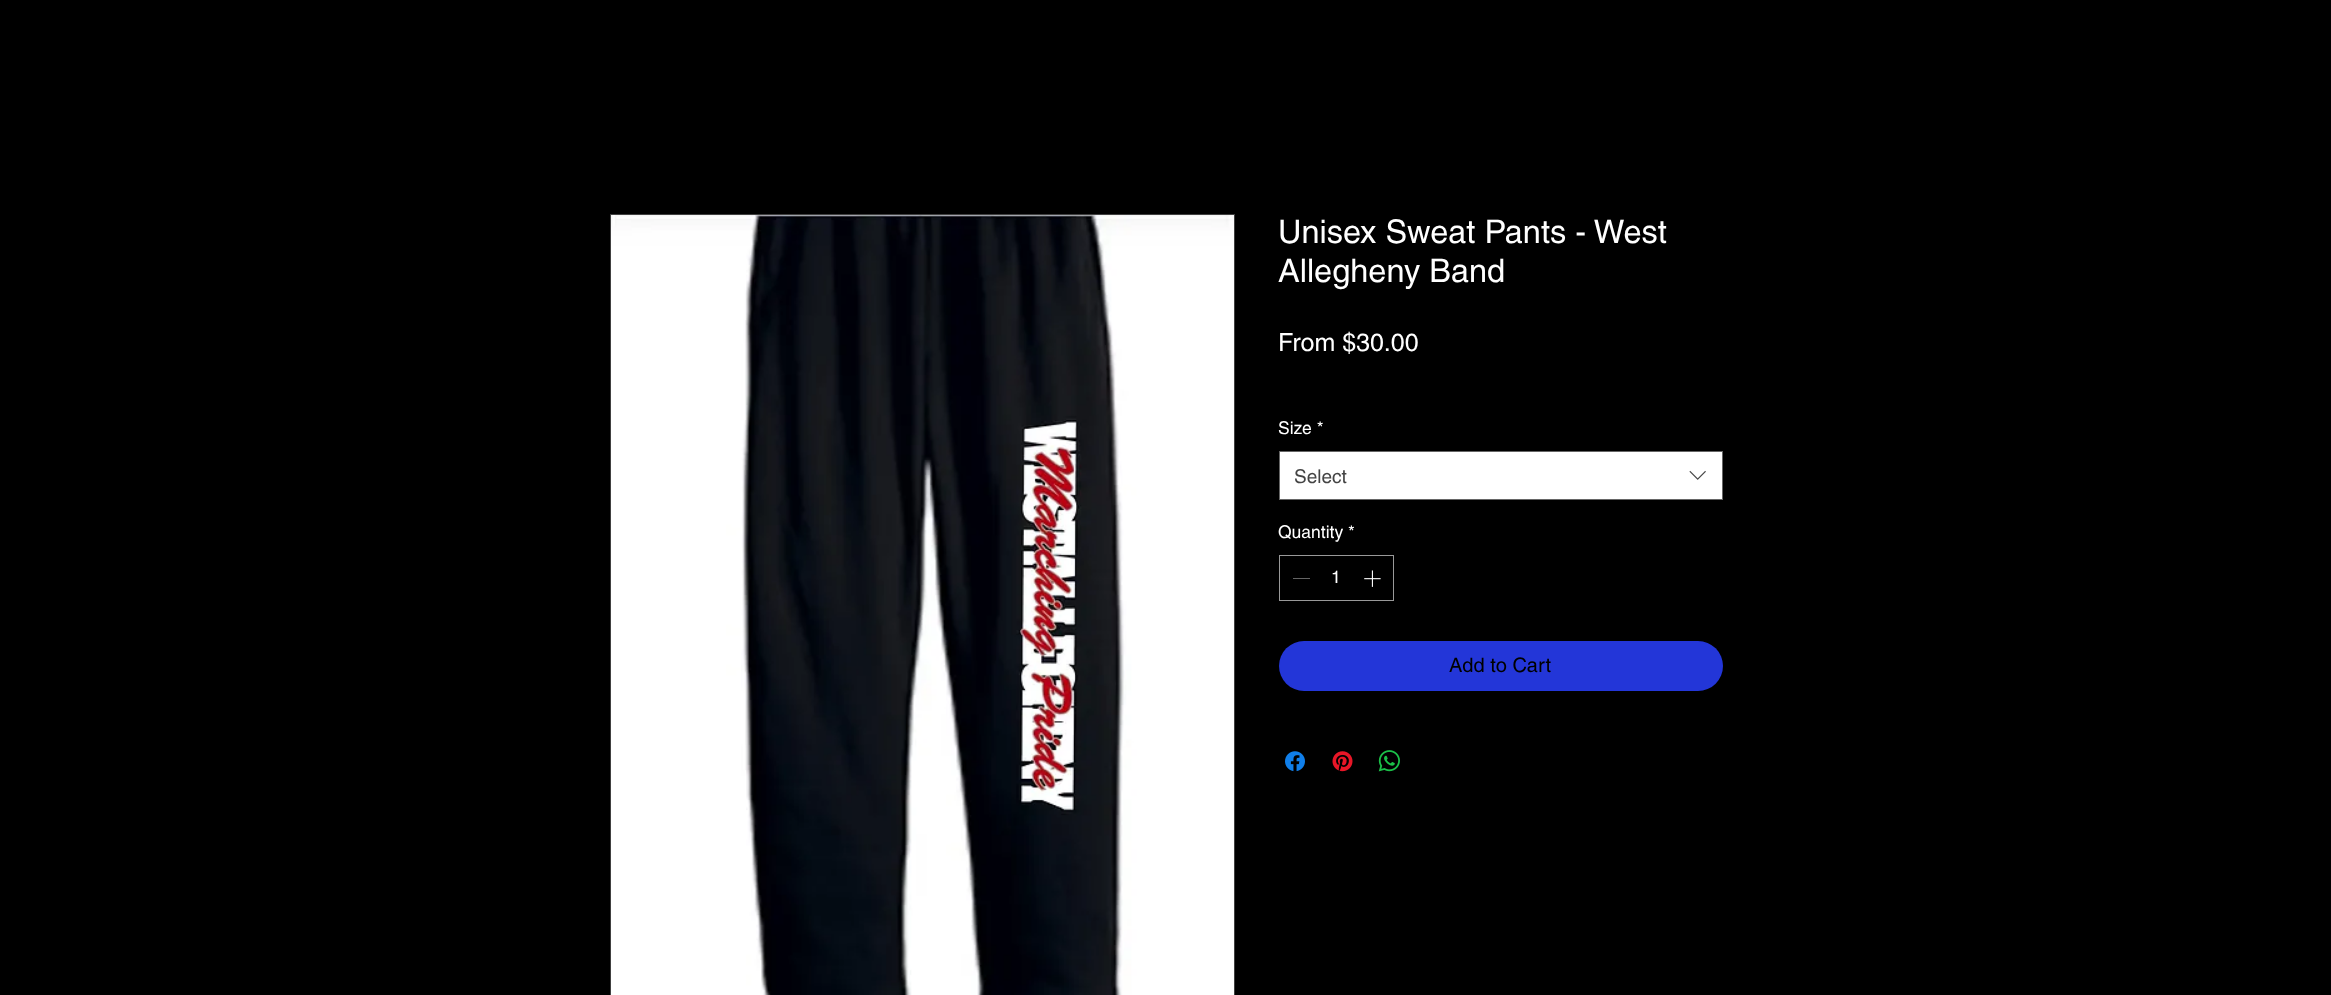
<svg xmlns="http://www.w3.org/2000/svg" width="2331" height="995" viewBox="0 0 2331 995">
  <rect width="100%" height="100%" fill="rgb(0,0,0)"/>
  <rect x="610.5" y="214.5" width="624" height="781" fill="none" stroke="rgb(64,64,64)"/>
  <image x="611" y="215" width="623" height="780" href="pic1.png"/>
  <g font-family="helvetica" font-size="32.5" fill="rgb(255,255,255)">
    <text>
      <tspan x="1278" y="243">Unisex Sweat Pants - West</tspan>
      <tspan x="1278" y="282">Allegheny Band</tspan>
    </text>
  </g>
  <text x="1278" y="351" font-family="helvetica" font-size="25" fill="rgb(255,255,255)">From $30.00</text>
  <text x="1278" y="434" font-family="helvetica" font-size="17.5" fill="rgb(255,255,255)">Size *</text>
  <rect x="1279.5" y="451.5" width="443" height="48" fill="rgb(255,255,255)" stroke="rgb(102,102,102)"/>
  <text x="1294" y="483" font-family="helvetica" font-size="19" fill="rgb(68,68,68)">Select</text>
  <image x="1689" y="470" width="17" height="10" href="pic2.png"/>
  <text x="1278" y="538" font-family="helvetica" font-size="17.5" fill="rgb(255,255,255)">Quantity *</text>
  <rect x="1279.5" y="555.5" width="114" height="45" fill="none" stroke="rgb(153,153,153)"/>
  <rect x="1293" y="578" width="17" height="1" fill="rgb(100,100,100)"/>
  <text x="1331" y="583" font-family="helvetica" font-size="17.5" fill="rgb(255,255,255)">1</text>
  <image x="1364" y="570" width="17" height="17" href="pic3.png"/>
  <rect x="1279" y="641" width="444" height="50" rx="25" fill="rgb(35,54,216)"/>
  <text x="1449" y="672" font-family="helvetica" font-size="20" fill="rgb(0,0,0)">Add to Cart</text>
  <image x="1285" y="751" width="20" height="21" href="pic4.png"/>
  <image x="1332" y="751" width="21" height="21" href="pic5.png"/>
  <image x="1378" y="750" width="22" height="22" href="pic6.png"/>
</svg>
